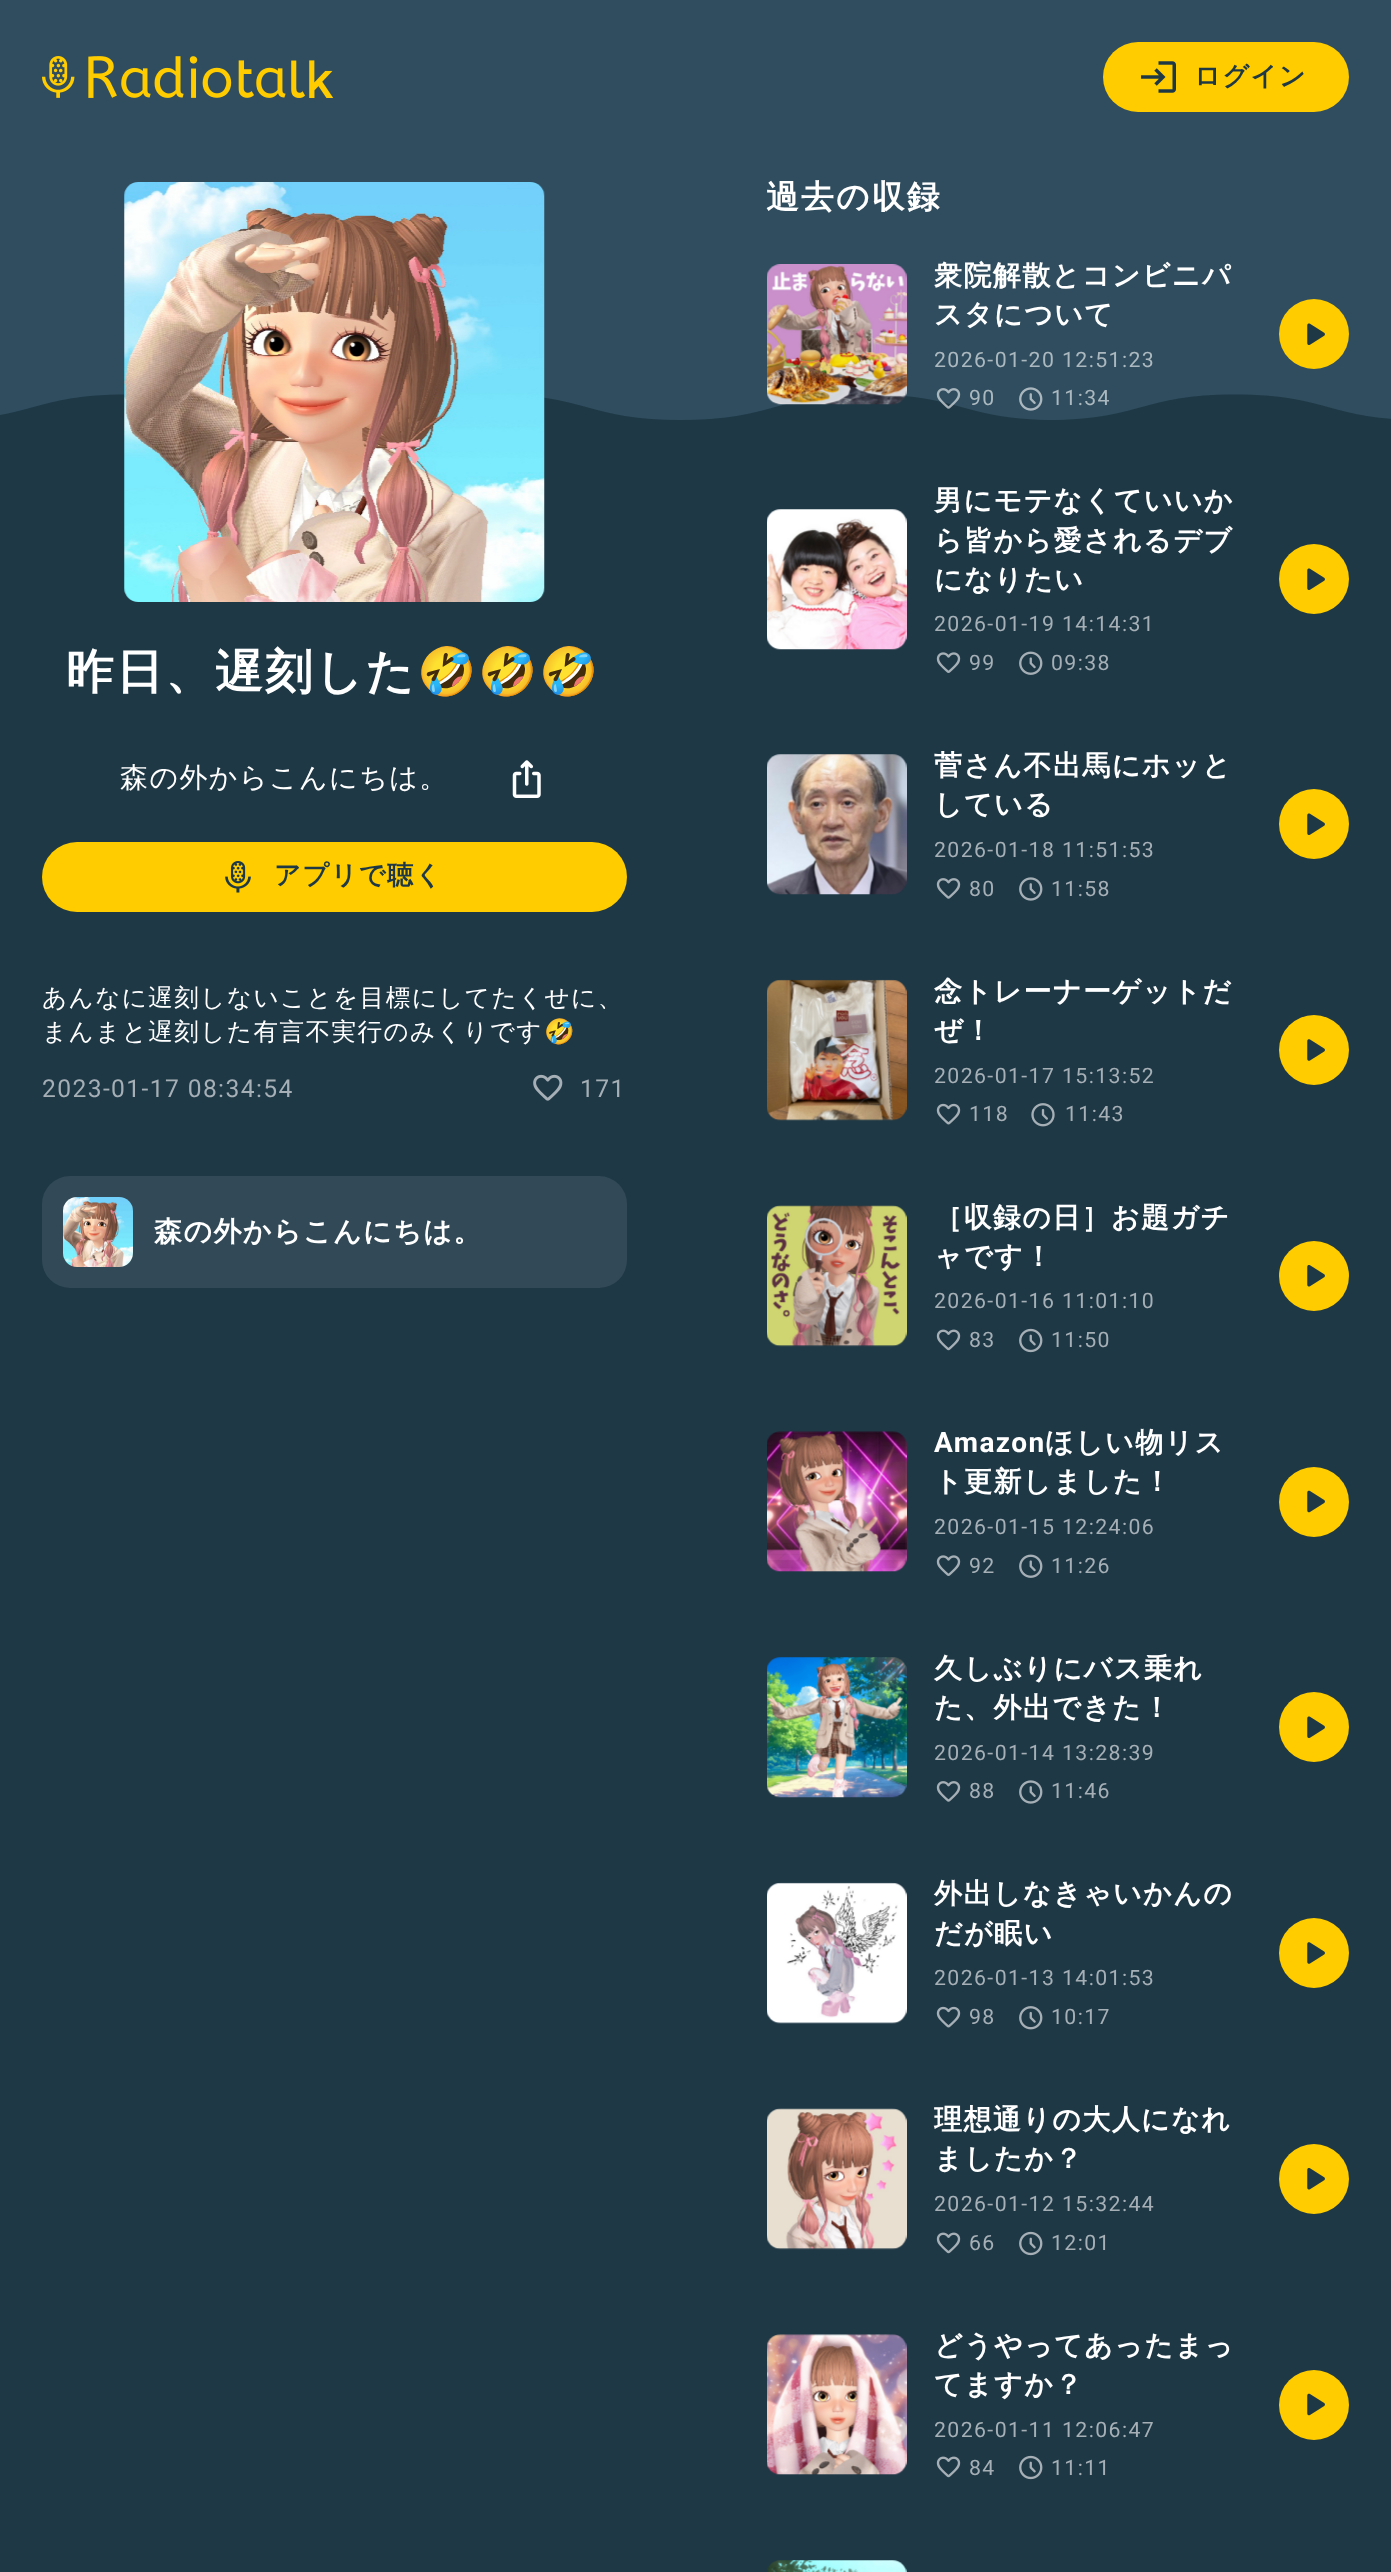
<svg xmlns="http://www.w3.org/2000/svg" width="1391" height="2572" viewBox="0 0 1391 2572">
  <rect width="100%" height="100%" fill="rgb(30,56,70)"/>
  <image x="0" y="0" width="1391" height="420" href="pic3.png"/>
  <image x="42" y="56" width="291" height="42" href="pic1.png"/>
  <rect x="1103" y="42" width="246" height="70" rx="35" fill="rgb(255,204,0)"/>
  <image x="1141" y="61" width="35" height="32" href="pic2.png"/>
  <text x="1194" y="85" font-family="WenQuanYi Zen Hei" font-size="26.25" font-weight="bold" letter-spacing="1.4" fill="rgb(30,56,70)">ログイン</text>
  <image x="124" y="182" width="421" height="420" href="pic4.png"/>
  <text x="66" y="688" font-family="WenQuanYi Zen Hei" font-size="47.5" font-weight="bold" letter-spacing="2.25" fill="rgb(255,255,255)">昨日、遅刻した</text>
  <text x="417" y="688" font-family="Noto Color Emoji" font-size="47.5" font-weight="bold" letter-spacing="2.25" fill="rgb(255,255,255)">🤣🤣🤣</text>
  <text x="120" y="787" font-family="WenQuanYi Zen Hei" font-size="28" font-weight="500" letter-spacing="1.4" fill="rgb(255,255,255)">森の外からこんにちは。</text>
  <image x="512" y="760" width="29" height="38" href="pic5.png"/>
  <rect x="42" y="842" width="585" height="70" rx="35" fill="rgb(255,204,0)"/>
  <image x="225" y="861" width="26" height="32" href="pic6.png"/>
  <text x="274" y="884" font-family="WenQuanYi Zen Hei" font-size="26.25" font-weight="bold" letter-spacing="1.4" fill="rgb(30,56,70)">アプリで聴く</text>
  <g font-family="WenQuanYi Zen Hei" font-size="24.6" font-weight="500" letter-spacing="1.4" fill="rgb(255,255,255)">
    <text>
      <tspan x="42" y="1006">あんなに遅刻しないことを目標にしてたくせに、</tspan>
      <tspan x="42" y="1040">まんまと遅刻した有言不実行のみくりです</tspan>
    </text>
  </g>
  <text x="544" y="1040" font-family="Noto Color Emoji" font-size="24.6" letter-spacing="1.4" fill="rgb(255,255,255)">🤣</text>
  <text x="42" y="1097" font-family="Roboto" font-size="24.6" letter-spacing="1.4" fill="rgb(165,175,181)">2023-01-17 08:34:54</text>
  <image x="533" y="1074" width="30" height="27" href="pic7.png"/>
  <text x="580" y="1097" font-family="Roboto" font-size="24.6" letter-spacing="1.4" fill="rgb(165,175,181)">171</text>
  <rect x="42" y="1176" width="585" height="112" rx="28" fill="rgb(50,74,87)"/>
  <image x="63" y="1197" width="70" height="70" href="pic8.png"/>
  <text x="154" y="1241" font-family="WenQuanYi Zen Hei" font-size="28" font-weight="bold" letter-spacing="1.4" fill="rgb(255,255,255)">森の外からこんにちは。</text>
  <text x="766" y="208" font-family="WenQuanYi Zen Hei" font-size="32.75" font-weight="bold" letter-spacing="2.25" fill="rgb(255,255,255)">過去の収録</text>
  <image x="767" y="264" width="140" height="141" href="pic9.png"/>
  <g font-family="WenQuanYi Zen Hei" font-size="28" font-weight="bold" letter-spacing="1.4" fill="rgb(255,255,255)">
    <text>
      <tspan x="934" y="285">衆院解散とコンビニパ</tspan>
      <tspan x="934" y="324">スタについて</tspan>
    </text>
  </g>
  <text x="934" y="367" font-family="Roboto" font-size="21.25" letter-spacing="1.4" fill="rgb(172,184,191)">2026-01-20 12:51:23</text>
  <image x="936" y="388" width="25" height="21" href="pic10.png"/>
  <text x="969" y="405" font-family="Roboto" font-size="21.25" letter-spacing="1.4" fill="rgb(172,184,191)">90</text>
  <image x="1019" y="387" width="24" height="24" href="pic11.png"/>
  <text x="1051" y="405" font-family="Roboto" font-size="21.25" letter-spacing="1.4" fill="rgb(172,184,191)">11:34</text>
  <circle cx="1314" cy="334" r="35" fill="rgb(255,204,0)"/>
  <image x="1307" y="323" width="18" height="22" href="pic12.png"/>
  <image x="767" y="509" width="140" height="141" href="pic13.png"/>
  <g font-family="WenQuanYi Zen Hei" font-size="28" font-weight="bold" letter-spacing="1.4" fill="rgb(255,255,255)">
    <text>
      <tspan x="934" y="510">男にモテなくていいか</tspan>
      <tspan x="934" y="550">ら皆から愛されるデブ</tspan>
      <tspan x="934" y="589">になりたい</tspan>
    </text>
  </g>
  <text x="934" y="631" font-family="Roboto" font-size="21.25" letter-spacing="1.4" fill="rgb(165,175,181)">2026-01-19 14:14:31</text>
  <image x="936" y="652" width="25" height="21" href="pic14.png"/>
  <text x="969" y="670" font-family="Roboto" font-size="21.25" letter-spacing="1.4" fill="rgb(165,175,181)">99</text>
  <image x="1019" y="651" width="24" height="24" href="pic15.png"/>
  <text x="1051" y="670" font-family="Roboto" font-size="21.25" letter-spacing="1.4" fill="rgb(165,175,181)">09:38</text>
  <circle cx="1314" cy="579" r="35" fill="rgb(255,204,0)"/>
  <image x="1307" y="568" width="18" height="22" href="pic12.png"/>
  <image x="767" y="754" width="140" height="141" href="pic16.png"/>
  <g font-family="WenQuanYi Zen Hei" font-size="28" font-weight="bold" letter-spacing="1.4" fill="rgb(255,255,255)">
    <text>
      <tspan x="934" y="775">菅さん不出馬にホッと</tspan>
      <tspan x="934" y="814">している</tspan>
    </text>
  </g>
  <text x="934" y="857" font-family="Roboto" font-size="21.25" letter-spacing="1.4" fill="rgb(165,175,181)">2026-01-18 11:51:53</text>
  <image x="936" y="878" width="25" height="21" href="pic17.png"/>
  <text x="969" y="896" font-family="Roboto" font-size="21.25" letter-spacing="1.4" fill="rgb(165,175,181)">80</text>
  <image x="1019" y="877" width="24" height="24" href="pic18.png"/>
  <text x="1051" y="896" font-family="Roboto" font-size="21.25" letter-spacing="1.4" fill="rgb(165,175,181)">11:58</text>
  <circle cx="1314" cy="824" r="35" fill="rgb(255,204,0)"/>
  <image x="1307" y="813" width="18" height="22" href="pic12.png"/>
  <image x="767" y="979" width="140" height="142" href="pic19.png"/>
  <g font-family="WenQuanYi Zen Hei" font-size="28" font-weight="bold" letter-spacing="1.4" fill="rgb(255,255,255)">
    <text>
      <tspan x="934" y="1001">念トレーナーゲットだ</tspan>
      <tspan x="934" y="1040">ぜ！</tspan>
    </text>
  </g>
  <text x="934" y="1083" font-family="Roboto" font-size="21.25" letter-spacing="1.4" fill="rgb(165,175,181)">2026-01-17 15:13:52</text>
  <image x="936" y="1103" width="25" height="22" href="pic20.png"/>
  <text x="969" y="1121" font-family="Roboto" font-size="21.25" letter-spacing="1.4" fill="rgb(165,175,181)">118</text>
  <image x="1031" y="1103" width="24" height="24" href="pic21.png"/>
  <text x="1065" y="1121" font-family="Roboto" font-size="21.25" letter-spacing="1.4" fill="rgb(165,175,181)">11:43</text>
  <circle cx="1314" cy="1050" r="35" fill="rgb(255,204,0)"/>
  <image x="1307" y="1039" width="18" height="22" href="pic22.png"/>
  <image x="767" y="1205" width="140" height="142" href="pic23.png"/>
  <g font-family="WenQuanYi Zen Hei" font-size="28" font-weight="bold" letter-spacing="1.4" fill="rgb(255,255,255)">
    <text>
      <tspan x="934" y="1227">［収録の日］お題ガチ</tspan>
      <tspan x="934" y="1266">ャです！</tspan>
    </text>
  </g>
  <text x="934" y="1308" font-family="Roboto" font-size="21.25" letter-spacing="1.4" fill="rgb(165,175,181)">2026-01-16 11:01:10</text>
  <image x="936" y="1329" width="25" height="22" href="pic24.png"/>
  <text x="969" y="1347" font-family="Roboto" font-size="21.25" letter-spacing="1.4" fill="rgb(165,175,181)">83</text>
  <image x="1019" y="1328" width="24" height="25" href="pic25.png"/>
  <text x="1051" y="1347" font-family="Roboto" font-size="21.25" letter-spacing="1.4" fill="rgb(165,175,181)">11:50</text>
  <circle cx="1314" cy="1276" r="35" fill="rgb(255,204,0)"/>
  <image x="1307" y="1265" width="18" height="22" href="pic26.png"/>
  <image x="767" y="1431" width="140" height="141" href="pic27.png"/>
  <text x="934" y="1452" font-family="Roboto" font-size="28" font-weight="bold" letter-spacing="1.4" fill="rgb(255,255,255)">Amazon</text>
  <g font-family="WenQuanYi Zen Hei" font-size="28" font-weight="bold" letter-spacing="1.4" fill="rgb(255,255,255)">
    <text x="1045" y="1452">ほしい物リス</text>
    <text x="934" y="1491">ト更新しました！</text>
  </g>
  <text x="934" y="1534" font-family="Roboto" font-size="21.25" letter-spacing="1.4" fill="rgb(165,175,181)">2026-01-15 12:24:06</text>
  <image x="936" y="1555" width="25" height="21" href="pic14.png"/>
  <text x="969" y="1573" font-family="Roboto" font-size="21.25" letter-spacing="1.4" fill="rgb(165,175,181)">92</text>
  <image x="1019" y="1554" width="24" height="24" href="pic15.png"/>
  <text x="1051" y="1573" font-family="Roboto" font-size="21.25" letter-spacing="1.4" fill="rgb(165,175,181)">11:26</text>
  <circle cx="1314" cy="1502" r="35" fill="rgb(255,204,0)"/>
  <image x="1307" y="1490" width="18" height="23" href="pic28.png"/>
  <image x="767" y="1657" width="140" height="141" href="pic29.png"/>
  <g font-family="WenQuanYi Zen Hei" font-size="28" font-weight="bold" letter-spacing="1.4" fill="rgb(255,255,255)">
    <text>
      <tspan x="934" y="1678">久しぶりにバス乗れ</tspan>
      <tspan x="934" y="1717">た、外出できた！</tspan>
    </text>
  </g>
  <text x="934" y="1760" font-family="Roboto" font-size="21.25" letter-spacing="1.4" fill="rgb(165,175,181)">2026-01-14 13:28:39</text>
  <image x="936" y="1781" width="25" height="21" href="pic17.png"/>
  <text x="969" y="1798" font-family="Roboto" font-size="21.25" letter-spacing="1.4" fill="rgb(165,175,181)">88</text>
  <image x="1019" y="1780" width="24" height="24" href="pic18.png"/>
  <text x="1051" y="1798" font-family="Roboto" font-size="21.25" letter-spacing="1.4" fill="rgb(165,175,181)">11:46</text>
  <circle cx="1314" cy="1727" r="35" fill="rgb(255,204,0)"/>
  <image x="1307" y="1716" width="18" height="22" href="pic12.png"/>
  <image x="767" y="1882" width="140" height="142" href="pic30.png"/>
  <g font-family="WenQuanYi Zen Hei" font-size="28" font-weight="bold" letter-spacing="1.4" fill="rgb(255,255,255)">
    <text>
      <tspan x="934" y="1903">外出しなきゃいかんの</tspan>
      <tspan x="934" y="1943">だが眠い</tspan>
    </text>
  </g>
  <text x="934" y="1985" font-family="Roboto" font-size="21.25" letter-spacing="1.4" fill="rgb(165,175,181)">2026-01-13 14:01:53</text>
  <image x="936" y="2006" width="25" height="22" href="pic20.png"/>
  <text x="969" y="2024" font-family="Roboto" font-size="21.25" letter-spacing="1.4" fill="rgb(165,175,181)">98</text>
  <image x="1019" y="2006" width="24" height="24" href="pic31.png"/>
  <text x="1051" y="2024" font-family="Roboto" font-size="21.25" letter-spacing="1.4" fill="rgb(165,175,181)">10:17</text>
  <circle cx="1314" cy="1953" r="35" fill="rgb(255,204,0)"/>
  <image x="1307" y="1942" width="18" height="22" href="pic22.png"/>
  <image x="767" y="2108" width="140" height="142" href="pic32.png"/>
  <g font-family="WenQuanYi Zen Hei" font-size="28" font-weight="bold" letter-spacing="1.4" fill="rgb(255,255,255)">
    <text>
      <tspan x="934" y="2129">理想通りの大人になれ</tspan>
      <tspan x="934" y="2168">ましたか？</tspan>
    </text>
  </g>
  <text x="934" y="2211" font-family="Roboto" font-size="21.25" letter-spacing="1.4" fill="rgb(165,175,181)">2026-01-12 15:32:44</text>
  <image x="936" y="2232" width="25" height="22" href="pic24.png"/>
  <text x="969" y="2250" font-family="Roboto" font-size="21.25" letter-spacing="1.4" fill="rgb(165,175,181)">66</text>
  <image x="1019" y="2231" width="24" height="25" href="pic25.png"/>
  <text x="1051" y="2250" font-family="Roboto" font-size="21.25" letter-spacing="1.4" fill="rgb(165,175,181)">12:01</text>
  <circle cx="1314" cy="2179" r="35" fill="rgb(255,204,0)"/>
  <image x="1307" y="2168" width="18" height="22" href="pic26.png"/>
  <image x="767" y="2334" width="140" height="141" href="pic33.png"/>
  <g font-family="WenQuanYi Zen Hei" font-size="28" font-weight="bold" letter-spacing="1.4" fill="rgb(255,255,255)">
    <text>
      <tspan x="934" y="2355">どうやってあったまっ</tspan>
      <tspan x="934" y="2394">てますか？</tspan>
    </text>
  </g>
  <text x="934" y="2437" font-family="Roboto" font-size="21.25" letter-spacing="1.4" fill="rgb(165,175,181)">2026-01-11 12:06:47</text>
  <image x="936" y="2456" width="25" height="22" href="pic24.png"/>
  <text x="969" y="2475" font-family="Roboto" font-size="21.25" letter-spacing="1.4" fill="rgb(165,175,181)">84</text>
  <image x="1019" y="2455" width="24" height="25" href="pic25.png"/>
  <text x="1051" y="2475" font-family="Roboto" font-size="21.25" letter-spacing="1.4" fill="rgb(165,175,181)">11:11</text>
  <circle cx="1314" cy="2405" r="35" fill="rgb(255,204,0)"/>
  <image x="1307" y="2393" width="18" height="23" href="pic28.png"/>
  <image x="767" y="2560" width="140" height="12" href="pic34.png"/>
</svg>
